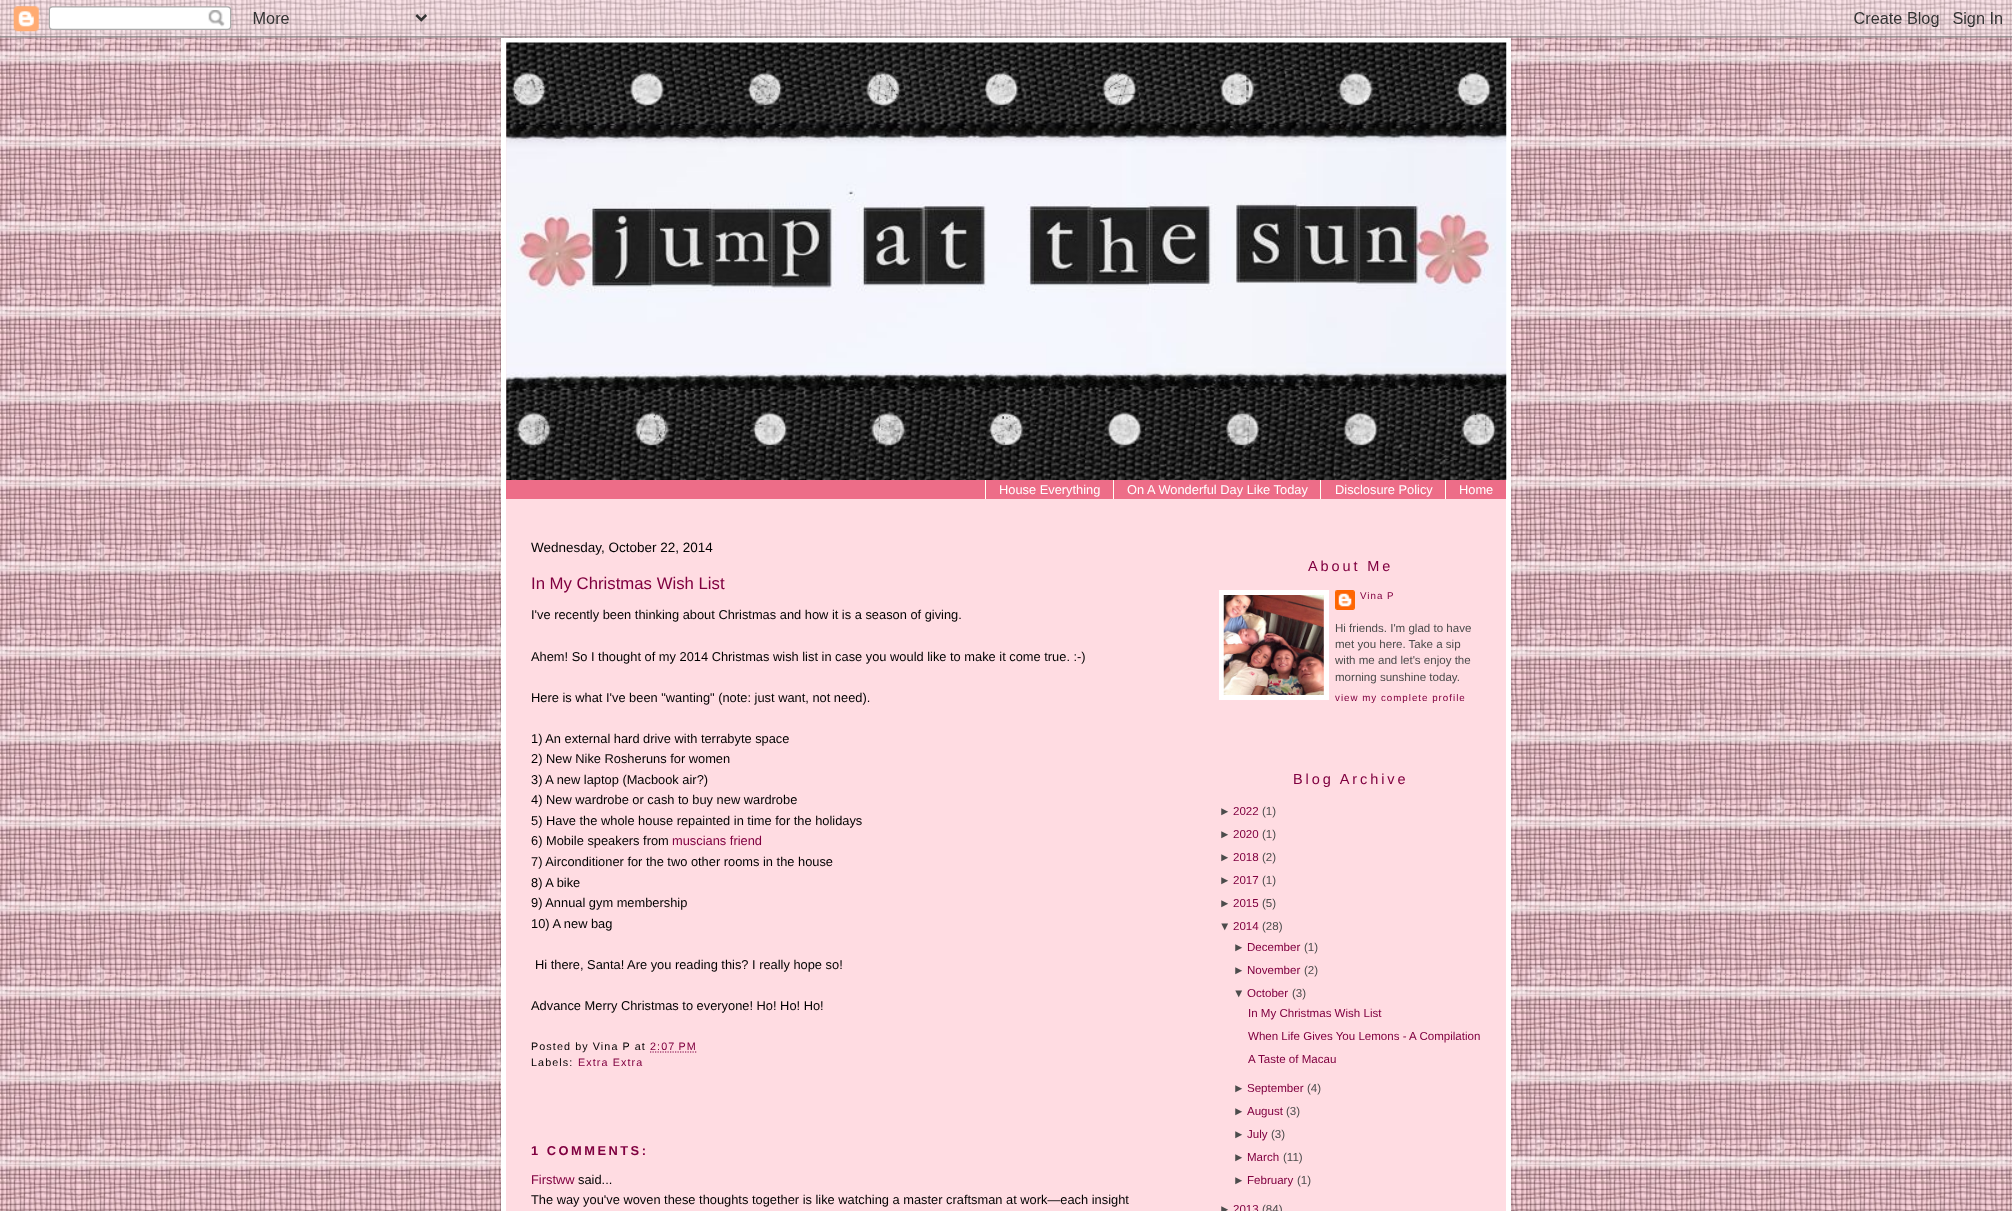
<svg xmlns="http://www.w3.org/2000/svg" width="2012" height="1211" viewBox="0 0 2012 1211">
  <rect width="100%" height="100%" fill="rgb(255,255,255)"/>
  <image x="0" y="0" width="2012" height="1211" href="pic1.png"/>
  <image x="0" y="0" width="2012" height="38" href="pic2.png"/>
  <rect x="503.5" y="40.5" width="1005" height="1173" fill="rgb(255,220,226)" stroke="rgb(255,255,255)" stroke-width="5"/>
  <image x="506" y="42" width="1001" height="438" href="pic3.png"/>
  <rect x="506" y="480" width="1000" height="19" fill="rgb(237,109,136)"/>
  <rect x="985" y="480" width="1" height="19" fill="rgb(255,255,244)"/>
  <text x="999" y="494" font-family="Liberation Sans" font-size="12.85" fill="rgb(255,255,255)">House Everything</text>
  <rect x="1113" y="480" width="1" height="19" fill="rgb(255,255,244)"/>
  <text x="1127" y="494" font-family="Liberation Sans" font-size="12.85" fill="rgb(255,255,255)">On A Wonderful Day Like Today</text>
  <rect x="1320" y="480" width="1" height="19" fill="rgb(255,255,244)"/>
  <text x="1335" y="494" font-family="Liberation Sans" font-size="12.85" fill="rgb(255,255,255)">Disclosure Policy</text>
  <rect x="1445" y="480" width="1" height="19" fill="rgb(255,255,244)"/>
  <text x="1459" y="494" font-family="Liberation Sans" font-size="12.85" fill="rgb(255,255,255)">Home</text>
  <text x="531" y="552" font-family="Liberation Sans" font-size="13.5" fill="rgb(0,0,0)">Wednesday, October 22, 2014</text>
  <text x="531" y="589" font-family="Liberation Sans" font-size="16.75" fill="rgb(128,0,64)">In My Christmas Wish List</text>
  <g font-family="Liberation Sans" font-size="12.85" fill="rgb(0,0,0)">
    <text x="531" y="619">I've recently been thinking about Christmas and how it is a season of giving.</text>
    <text x="531" y="661">Ahem! So I thought of my 2014 Christmas wish list in case you would like to make it come true. :-)</text>
    <text x="531" y="702">Here is what I've been "wanting" (note: just want, not need).</text>
    <text>
      <tspan x="531" y="743">1) An external hard drive with terrabyte space</tspan>
      <tspan x="531" y="763">2) New Nike Rosheruns for women</tspan>
      <tspan x="531" y="784">3) A new laptop (Macbook air?)</tspan>
      <tspan x="531" y="804">4) New wardrobe or cash to buy new wardrobe</tspan>
      <tspan x="531" y="825">5) Have the whole house repainted in time for the holidays</tspan>
      <tspan x="531" y="845">6) Mobile speakers from</tspan>
    </text>
  </g>
  <text x="672" y="845" font-family="Liberation Sans" font-size="12.85" fill="rgb(128,0,64)">muscians friend</text>
  <g font-family="Liberation Sans" font-size="12.85" fill="rgb(0,0,0)">
    <text>
      <tspan x="531" y="866">7) Airconditioner for the two other rooms in the house</tspan>
      <tspan x="531" y="887">8) A bike</tspan>
      <tspan x="531" y="907">9) Annual gym membership</tspan>
      <tspan x="531" y="928">10) A new bag</tspan>
    </text>
    <text x="535" y="969">Hi there, Santa! Are you reading this? I really hope so!</text>
    <text x="531" y="1010">Advance Merry Christmas to everyone! Ho! Ho! Ho!</text>
  </g>
  <text x="531" y="1050" font-family="Liberation Sans" font-size="10.75" letter-spacing="1.1" fill="rgb(0,0,0)">Posted by Vina P at</text>
  <text x="650" y="1050" font-family="Liberation Sans" font-size="10.75" letter-spacing="1.1" fill="rgb(128,0,64)">2:07 PM</text>
  <path d="M650 1052H697" fill="none" stroke="rgb(128,0,64)" stroke-width="1.2" stroke-dasharray="1.25 1.25"/>
  <text x="531" y="1066" font-family="Liberation Sans" font-size="10.75" letter-spacing="1.1" fill="rgb(0,0,0)">Labels:</text>
  <text x="578" y="1066" font-family="Liberation Sans" font-size="10.75" letter-spacing="1.1" fill="rgb(128,0,64)">Extra Extra</text>
  <text x="531" y="1155" font-family="Liberation Sans" font-size="12.85" font-weight="bold" letter-spacing="2.5" fill="rgb(128,0,64)">1 COMMENTS:</text>
  <text x="531" y="1184" font-family="Liberation Sans" font-size="12.85" fill="rgb(128,0,64)">Firstww</text>
  <g font-family="Liberation Sans" font-size="12.85" fill="rgb(0,0,0)">
    <text x="578" y="1184">said...</text>
    <text x="531" y="1204">The way you've woven these thoughts together is like watching a master craftsman at work—each insight</text>
  </g>
  <text x="1308" y="571" font-family="Liberation Sans" font-size="14.5" letter-spacing="2.9" fill="rgb(128,0,64)">About Me</text>
  <rect x="1221.5" y="592.5" width="105" height="105" fill="none" stroke="rgb(255,255,255)" stroke-width="5"/>
  <image x="1223" y="595" width="101" height="100" href="pic4.png"/>
  <image x="1335" y="590" width="20" height="20" href="pic5.png"/>
  <text x="1360" y="599" font-family="Liberation Sans" font-size="9.75" letter-spacing="1" fill="rgb(128,0,64)">Vina P</text>
  <g font-family="Liberation Sans" font-size="11.55" fill="rgb(76,76,76)">
    <text>
      <tspan x="1335" y="632">Hi friends. I'm glad to have</tspan>
      <tspan x="1335" y="648">met you here. Take a sip</tspan>
      <tspan x="1335" y="664">with me and let's enjoy the</tspan>
      <tspan x="1335" y="681">morning sunshine today.</tspan>
    </text>
  </g>
  <text x="1335" y="701" font-family="Liberation Sans" font-size="9.75" letter-spacing="1" fill="rgb(128,0,64)">view my complete profile</text>
  <text x="1293" y="784" font-family="Liberation Sans" font-size="14.5" letter-spacing="2.9" fill="rgb(128,0,64)">Blog Archive</text>
  <text x="1219" y="815" font-family="Liberation Sans" font-size="11.55" fill="rgb(76,76,76)">►</text>
  <text x="1233" y="815" font-family="Liberation Sans" font-size="11.55" fill="rgb(128,0,64)">2022</text>
  <g font-family="Liberation Sans" font-size="11.55" fill="rgb(76,76,76)">
    <text x="1262" y="815">(1)</text>
    <text x="1219" y="838">►</text>
  </g>
  <text x="1233" y="838" font-family="Liberation Sans" font-size="11.55" fill="rgb(128,0,64)">2020</text>
  <g font-family="Liberation Sans" font-size="11.55" fill="rgb(76,76,76)">
    <text x="1262" y="838">(1)</text>
    <text x="1219" y="861">►</text>
  </g>
  <text x="1233" y="861" font-family="Liberation Sans" font-size="11.55" fill="rgb(128,0,64)">2018</text>
  <g font-family="Liberation Sans" font-size="11.55" fill="rgb(76,76,76)">
    <text x="1262" y="861">(2)</text>
    <text x="1219" y="884">►</text>
  </g>
  <text x="1233" y="884" font-family="Liberation Sans" font-size="11.55" fill="rgb(128,0,64)">2017</text>
  <g font-family="Liberation Sans" font-size="11.55" fill="rgb(76,76,76)">
    <text x="1262" y="884">(1)</text>
    <text x="1219" y="907">►</text>
  </g>
  <text x="1233" y="907" font-family="Liberation Sans" font-size="11.55" fill="rgb(128,0,64)">2015</text>
  <g font-family="Liberation Sans" font-size="11.55" fill="rgb(76,76,76)">
    <text x="1262" y="907">(5)</text>
    <text x="1219" y="930">▼</text>
  </g>
  <text x="1233" y="930" font-family="Liberation Sans" font-size="11.55" fill="rgb(128,0,64)">2014</text>
  <g font-family="Liberation Sans" font-size="11.55" fill="rgb(76,76,76)">
    <text x="1262" y="930">(28)</text>
    <text x="1233" y="951">►</text>
  </g>
  <text x="1247" y="951" font-family="Liberation Sans" font-size="11.55" fill="rgb(128,0,64)">December</text>
  <g font-family="Liberation Sans" font-size="11.55" fill="rgb(76,76,76)">
    <text x="1304" y="951">(1)</text>
    <text x="1233" y="974">►</text>
  </g>
  <text x="1247" y="974" font-family="Liberation Sans" font-size="11.55" fill="rgb(128,0,64)">November</text>
  <g font-family="Liberation Sans" font-size="11.55" fill="rgb(76,76,76)">
    <text x="1304" y="974">(2)</text>
    <text x="1233" y="997">▼</text>
  </g>
  <text x="1247" y="997" font-family="Liberation Sans" font-size="11.55" fill="rgb(128,0,64)">October</text>
  <text x="1292" y="997" font-family="Liberation Sans" font-size="11.55" fill="rgb(76,76,76)">(3)</text>
  <g font-family="Liberation Sans" font-size="11.55" fill="rgb(128,0,64)">
    <text>
      <tspan x="1248" y="1017">In My Christmas Wish List</tspan>
      <tspan x="1248" y="1040">When Life Gives You Lemons - A Compilation</tspan>
      <tspan x="1248" y="1063">A Taste of Macau</tspan>
    </text>
  </g>
  <text x="1233" y="1092" font-family="Liberation Sans" font-size="11.55" fill="rgb(76,76,76)">►</text>
  <text x="1247" y="1092" font-family="Liberation Sans" font-size="11.55" fill="rgb(128,0,64)">September</text>
  <g font-family="Liberation Sans" font-size="11.55" fill="rgb(76,76,76)">
    <text x="1307" y="1092">(4)</text>
    <text x="1233" y="1115">►</text>
  </g>
  <text x="1247" y="1115" font-family="Liberation Sans" font-size="11.55" fill="rgb(128,0,64)">August</text>
  <g font-family="Liberation Sans" font-size="11.55" fill="rgb(76,76,76)">
    <text x="1286" y="1115">(3)</text>
    <text x="1233" y="1138">►</text>
  </g>
  <text x="1247" y="1138" font-family="Liberation Sans" font-size="11.55" fill="rgb(128,0,64)">July</text>
  <g font-family="Liberation Sans" font-size="11.55" fill="rgb(76,76,76)">
    <text x="1271" y="1138">(3)</text>
    <text x="1233" y="1161">►</text>
  </g>
  <text x="1247" y="1161" font-family="Liberation Sans" font-size="11.55" fill="rgb(128,0,64)">March</text>
  <g font-family="Liberation Sans" font-size="11.55" fill="rgb(76,76,76)">
    <text x="1283" y="1161">(11)</text>
    <text x="1233" y="1184">►</text>
  </g>
  <text x="1247" y="1184" font-family="Liberation Sans" font-size="11.55" fill="rgb(128,0,64)">February</text>
  <g font-family="Liberation Sans" font-size="11.55" fill="rgb(76,76,76)">
    <text x="1297" y="1184">(1)</text>
    <text x="1219" y="1213">►</text>
  </g>
  <text x="1233" y="1213" font-family="Liberation Sans" font-size="11.55" fill="rgb(128,0,64)">2013</text>
  <text x="1262" y="1213" font-family="Liberation Sans" font-size="11.55" fill="rgb(76,76,76)">(84)</text>
</svg>
